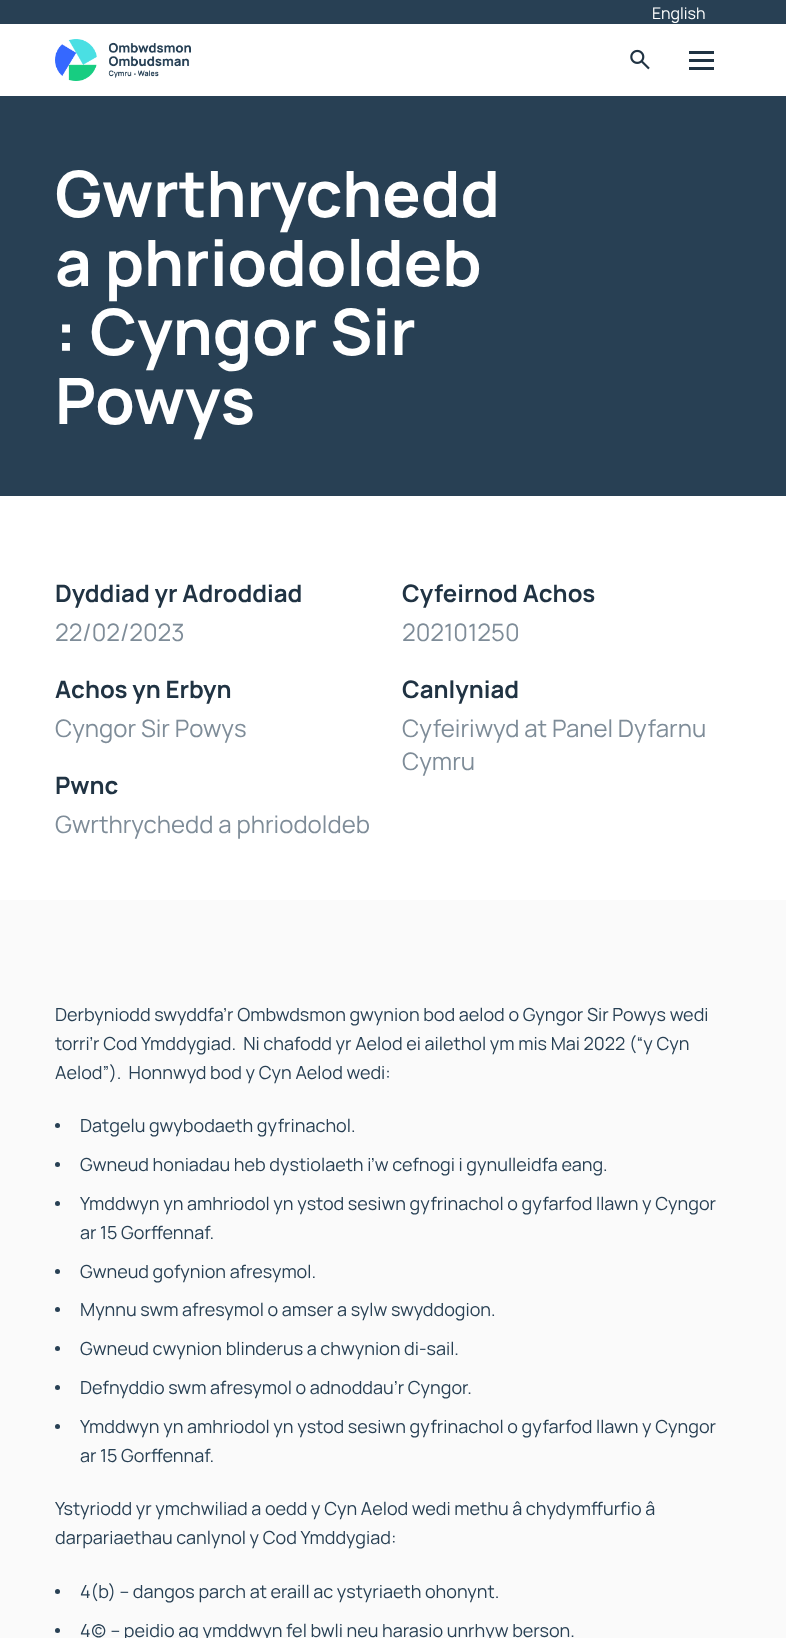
<svg xmlns="http://www.w3.org/2000/svg" width="786" height="1638" viewBox="0 0 786 1638">
  <rect width="100%" height="100%" fill="rgb(255,255,255)"/>
  <rect x="0" y="0" width="786" height="24" fill="rgb(40,64,84)"/>
  <text x="652" y="19" font-family="Manrope" font-size="16" fill="rgb(255,255,255)">English</text>
  <image x="55" y="39" width="136" height="42" href="pic1.png"/>
  <image x="630" y="49" width="20" height="21" href="pic2.png"/>
  <rect x="689" y="59" width="25" height="3" fill="rgb(32,51,67)"/>
  <rect x="689" y="51" width="25" height="3" fill="rgb(32,51,67)"/>
  <rect x="689" y="67" width="25" height="3" fill="rgb(32,51,67)"/>
  <rect x="0" y="96" width="786" height="400" fill="rgb(40,64,84)"/>
  <g font-family="Manrope" font-size="64" font-weight="bold" fill="rgb(255,255,255)">
    <text>
      <tspan x="55" y="217">Gwrthrychedd</tspan>
      <tspan x="55" y="286">a phriodoldeb</tspan>
      <tspan x="55" y="355">: Cyngor Sir</tspan>
      <tspan x="55" y="424">Powys</tspan>
    </text>
  </g>
  <text x="55" y="602" font-family="Manrope" font-size="24" font-weight="bold" fill="rgb(32,51,67)">Dyddiad yr Adroddiad</text>
  <text x="55" y="641" font-family="Manrope" font-size="24" fill="rgb(126,140,152)">22/02/2023</text>
  <text x="402" y="602" font-family="Manrope" font-size="24" font-weight="bold" fill="rgb(32,51,67)">Cyfeirnod Achos</text>
  <text x="402" y="641" font-family="Manrope" font-size="24" fill="rgb(126,140,152)">202101250</text>
  <text x="55" y="698" font-family="Manrope" font-size="24" font-weight="bold" fill="rgb(32,51,67)">Achos yn Erbyn</text>
  <text x="55" y="737" font-family="Manrope" font-size="24" fill="rgb(126,140,152)">Cyngor Sir Powys</text>
  <text x="402" y="698" font-family="Manrope" font-size="24" font-weight="bold" fill="rgb(32,51,67)">Canlyniad</text>
  <g font-family="Manrope" font-size="24" fill="rgb(126,140,152)">
    <text>
      <tspan x="402" y="737">Cyfeiriwyd at Panel Dyfarnu</tspan>
      <tspan x="402" y="770">Cymru</tspan>
    </text>
  </g>
  <text x="55" y="794" font-family="Manrope" font-size="24" font-weight="bold" fill="rgb(32,51,67)">Pwnc</text>
  <text x="55" y="833" font-family="Manrope" font-size="24" fill="rgb(126,140,152)">Gwrthrychedd a phriodoldeb</text>
  <rect x="0" y="900" width="786" height="738" fill="rgb(250,250,250)"/>
  <g font-family="Manrope" font-size="18" fill="rgb(40,64,84)">
    <text xml:space="preserve"><tspan x="55" y="1021">Derbyniodd swyddfa’r Ombwdsmon gwynion bod aelod o Gyngor Sir Powys wedi</tspan><tspan x="55" y="1050">torri’r Cod Ymddygiad.  Ni chafodd yr Aelod ei ailethol ym mis Mai 2022 (“y Cyn</tspan><tspan x="55" y="1079">Aelod”).  Honnwyd bod y Cyn Aelod wedi:</tspan></text>
  </g>
  <circle cx="57.5" cy="1125.5" r="2.5" fill="rgb(40,64,84)"/>
  <text x="80" y="1132" font-family="Manrope" font-size="18" fill="rgb(40,64,84)">Datgelu gwybodaeth gyfrinachol.</text>
  <circle cx="57.5" cy="1164.5" r="2.5" fill="rgb(40,64,84)"/>
  <text x="80" y="1171" font-family="Manrope" font-size="18" fill="rgb(40,64,84)">Gwneud honiadau heb dystiolaeth i’w cefnogi i gynulleidfa eang.</text>
  <circle cx="57.5" cy="1203.5" r="2.5" fill="rgb(40,64,84)"/>
  <g font-family="Manrope" font-size="18" fill="rgb(40,64,84)">
    <text>
      <tspan x="80" y="1210">Ymddwyn yn amhriodol yn ystod sesiwn gyfrinachol o gyfarfod llawn y Cyngor</tspan>
      <tspan x="80" y="1239">ar 15 Gorffennaf.</tspan>
    </text>
  </g>
  <circle cx="57.5" cy="1271.5" r="2.5" fill="rgb(40,64,84)"/>
  <text x="80" y="1278" font-family="Manrope" font-size="18" fill="rgb(40,64,84)">Gwneud gofynion afresymol.</text>
  <circle cx="57.5" cy="1309.5" r="2.5" fill="rgb(40,64,84)"/>
  <text x="80" y="1316" font-family="Manrope" font-size="18" fill="rgb(40,64,84)">Mynnu swm afresymol o amser a sylw swyddogion.</text>
  <circle cx="57.5" cy="1348.5" r="2.5" fill="rgb(40,64,84)"/>
  <text x="80" y="1355" font-family="Manrope" font-size="18" fill="rgb(40,64,84)">Gwneud cwynion blinderus a chwynion di-sail.</text>
  <circle cx="57.5" cy="1387.5" r="2.5" fill="rgb(40,64,84)"/>
  <text x="80" y="1394" font-family="Manrope" font-size="18" fill="rgb(40,64,84)">Defnyddio swm afresymol o adnoddau’r Cyngor.</text>
  <circle cx="57.5" cy="1426.5" r="2.5" fill="rgb(40,64,84)"/>
  <g font-family="Manrope" font-size="18" fill="rgb(40,64,84)">
    <text>
      <tspan x="80" y="1433">Ymddwyn yn amhriodol yn ystod sesiwn gyfrinachol o gyfarfod llawn y Cyngor</tspan>
      <tspan x="80" y="1462">ar 15 Gorffennaf.</tspan>
    </text>
    <text>
      <tspan x="55" y="1515">Ystyriodd yr ymchwiliad a oedd y Cyn Aelod wedi methu â chydymffurfio â</tspan>
      <tspan x="55" y="1544">darpariaethau canlynol y Cod Ymddygiad:</tspan>
    </text>
  </g>
  <circle cx="57.5" cy="1591.5" r="2.5" fill="rgb(40,64,84)"/>
  <text x="80" y="1598" font-family="Manrope" font-size="18" fill="rgb(40,64,84)">4(b) – dangos parch at eraill ac ystyriaeth ohonynt.</text>
  <circle cx="57.5" cy="1630.5" r="2.5" fill="rgb(40,64,84)"/>
  <text x="80" y="1637" font-family="Manrope" font-size="18" fill="rgb(40,64,84)">4(c) – peidio ag ymddwyn fel bwli neu harasio unrhyw berson.</text>
</svg>
